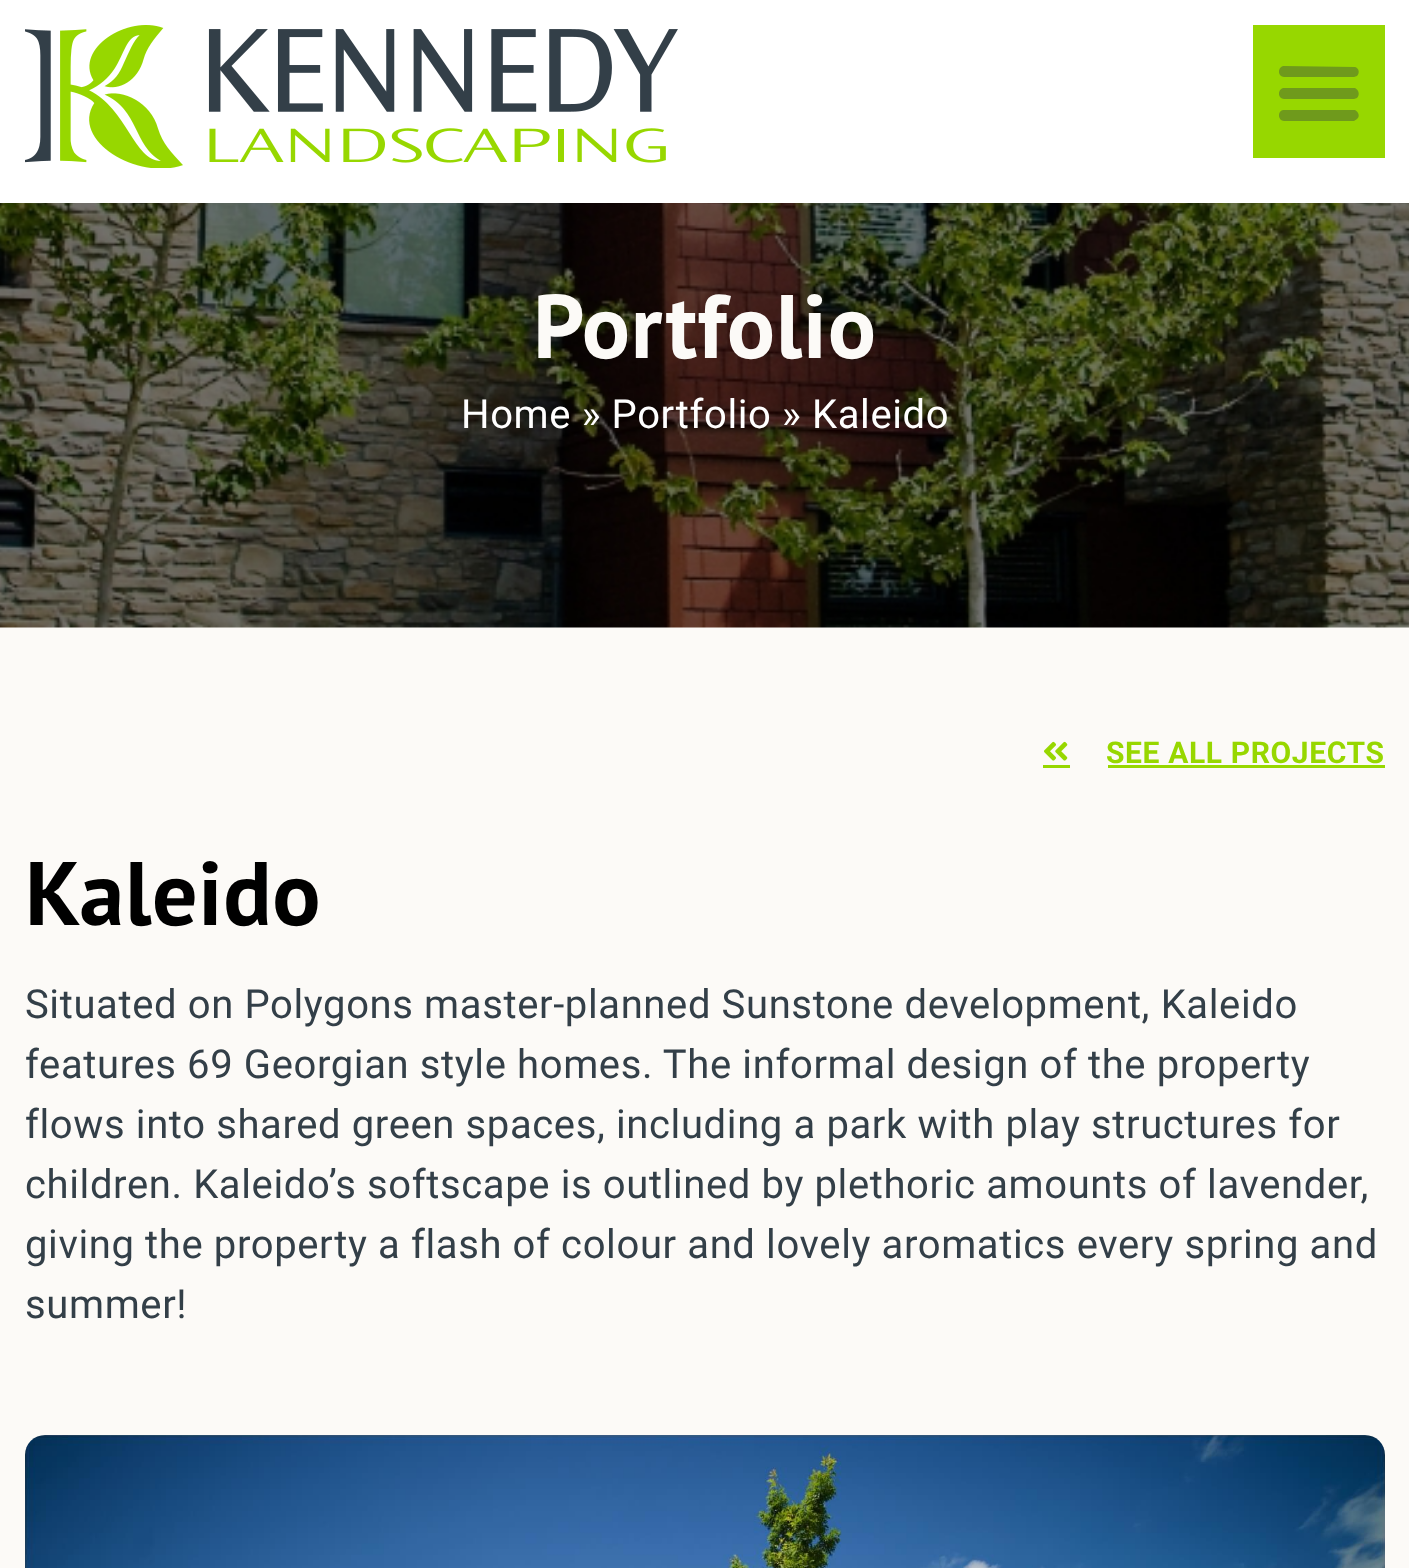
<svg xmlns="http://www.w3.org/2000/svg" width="1409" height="1568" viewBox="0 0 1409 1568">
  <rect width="100%" height="100%" fill="rgb(252,250,247)"/>
  <rect x="0" y="0" width="1409" height="203" fill="rgb(255,255,255)"/>
  <image x="25" y="25" width="653" height="143" href="pic1.png"/>
  <rect x="1253" y="25" width="132" height="133" fill="rgb(151,215,0)"/>
  <path d="M1284 77H1354L1357 76C1360 73 1359 68 1355 67L1283 66C1277 68 1278 77 1284 77ZM1284 99H1354L1357 98C1360 95 1359 90 1355 88H1283C1277 90 1278 99 1284 99ZM1284 121H1354L1357 119C1360 117 1359 112 1355 110H1283C1277 111 1278 121 1284 121Z" fill="rgb(111,154,28)"/>
  <image x="0" y="203" width="1409" height="425" href="pic2.png"/>
  <text x="533" y="358" font-family="PT Sans" font-size="90" font-weight="bold" letter-spacing="0.62" fill="rgb(252,250,247)">Portfolio</text>
  <text x="461" y="428" font-family="Roboto" font-size="40" letter-spacing="0.62" fill="rgb(255,255,255)">Home » Portfolio » Kaleido</text>
  <image x="1044" y="741" width="24" height="20" href="pic3.png"/>
  <rect x="1043" y="765" width="27" height="3" fill="rgb(151,215,0)"/>
  <text x="1106" y="763" font-family="Roboto" font-size="30" font-weight="bold" letter-spacing="0.62" fill="rgb(151,215,0)">SEE ALL PROJECTS</text>
  <rect x="1108" y="765" width="277" height="3" fill="rgb(151,215,0)"/>
  <text x="25" y="925" font-family="PT Sans" font-size="90" font-weight="bold" letter-spacing="0.62" fill="rgb(0,0,0)">Kaleido</text>
  <g font-family="Roboto" font-size="40" letter-spacing="0.62" fill="rgb(51,63,72)">
    <text>
      <tspan x="25" y="1018">Situated on Polygons master-planned Sunstone development, Kaleido</tspan>
      <tspan x="25" y="1078">features 69 Georgian style homes. The informal design of the property</tspan>
      <tspan x="25" y="1138">flows into shared green spaces, including a park with play structures for</tspan>
      <tspan x="25" y="1198">children. Kaleido’s softscape is outlined by plethoric amounts of lavender,</tspan>
      <tspan x="25" y="1258">giving the property a flash of colour and lovely aromatics every spring and</tspan>
      <tspan x="25" y="1318">summer!</tspan>
    </text>
  </g>
  <image x="25" y="1435" width="1360" height="133" href="pic4.png"/>
</svg>
